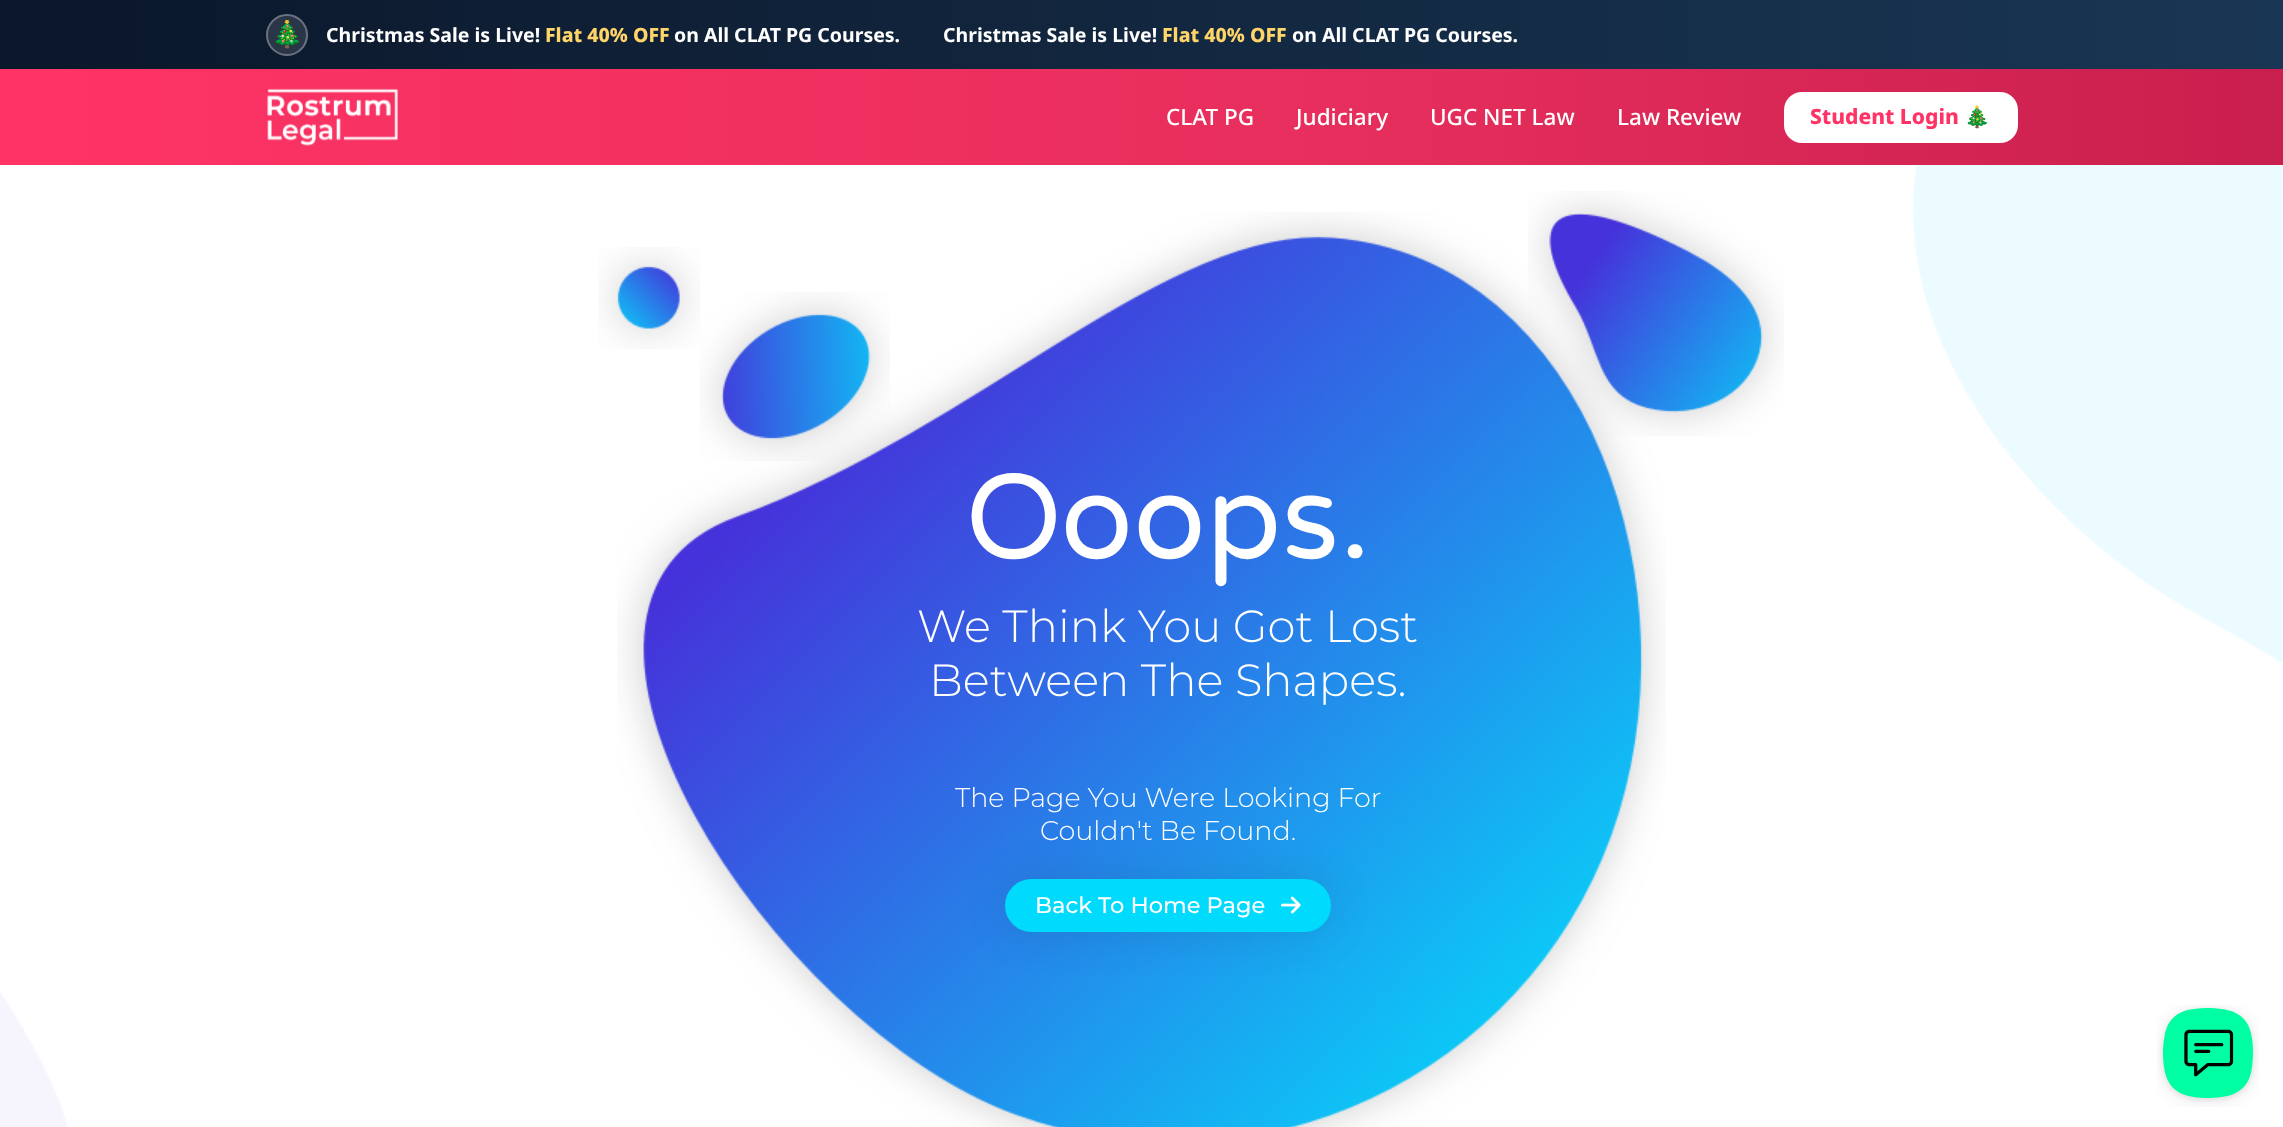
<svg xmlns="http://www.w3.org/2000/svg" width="2283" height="1127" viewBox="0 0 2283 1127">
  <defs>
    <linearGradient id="g1" gradientUnits="userSpaceOnUse" x1="0" y1="35" x2="2283" y2="34"><stop offset="0" stop-color="rgb(11,23,42)"/><stop offset="1" stop-color="rgb(25,54,84)"/></linearGradient>
    <linearGradient id="g2" gradientUnits="userSpaceOnUse" x1="0" y1="117" x2="2283" y2="117"><stop offset="0" stop-color="rgb(255,51,102)"/><stop offset="0.6" stop-color="rgb(230,46,92)"/><stop offset="1" stop-color="rgb(201,31,78)"/></linearGradient>
  </defs>
  <rect width="100%" height="100%" fill="rgb(255,255,255)"/>
  <rect x="0" y="0" width="2283" height="69" fill="url(#g1)"/>
  <circle cx="287" cy="35" r="21" fill="rgb(42,54,72)"/>
  <circle cx="287" cy="35" r="20" fill="none" stroke="rgba(255,255,255,0.3)" stroke-width="2"/>
  <text x="271" y="43" font-family="Noto Color Emoji" font-size="26" fill="rgb(255,255,255)">🎄</text>
  <text x="326" y="42" font-family="Noto Sans" font-size="19.5" font-weight="bold" fill="rgb(255,255,255)">Christmas Sale is Live!</text>
  <text x="545" y="42" font-family="Noto Sans" font-size="19.5" font-weight="800" fill="rgb(255,213,106)">Flat 40% OFF</text>
  <g font-family="Noto Sans" font-size="19.5" font-weight="bold" fill="rgb(255,255,255)">
    <text x="674" y="42">on All CLAT PG Courses.</text>
    <text x="943" y="42">Christmas Sale is Live!</text>
  </g>
  <text x="1162" y="42" font-family="Noto Sans" font-size="19.5" font-weight="800" fill="rgb(255,213,106)">Flat 40% OFF</text>
  <text x="1292" y="42" font-family="Noto Sans" font-size="19.5" font-weight="bold" fill="rgb(255,255,255)">on All CLAT PG Courses.</text>
  <rect x="0" y="69" width="2283" height="96" fill="url(#g2)"/>
  <image x="267" y="88" width="131" height="58" href="pic1.png"/>
  <g font-family="Noto Sans" font-size="22.5" font-weight="500" fill="rgb(255,255,255)">
    <text x="1166" y="125">CLAT PG</text>
    <text x="1296" y="125">Judiciary</text>
    <text x="1430" y="125">UGC NET Law</text>
    <text x="1617" y="125">Law Review</text>
  </g>
  <rect x="1784" y="92" width="234" height="51" rx="18" fill="rgb(255,255,255)"/>
  <text x="1810" y="124" font-family="Noto Sans" font-size="21" font-weight="800" fill="rgb(255,51,102)">Student Login</text>
  <text x="1964" y="124" font-family="Noto Color Emoji" font-size="21" font-weight="bold" fill="rgb(255,51,102)">🎄</text>
  <image x="0" y="165" width="2283" height="962" href="pic2.png"/>
  <image x="617" y="212" width="1049" height="915" href="pic6.png"/>
  <image x="598" y="247" width="102" height="102" href="pic3.png"/>
  <image x="700" y="292" width="190" height="169" href="pic4.png"/>
  <image x="1528" y="191" width="256" height="245" href="pic5.png"/>
  <text x="965" y="558" font-family="Varela Round" font-size="120" fill="rgb(255,255,255)">Ooops.</text>
  <g font-family="Montserrat" font-size="45" font-weight="300" fill="rgb(255,255,255)">
    <text x="917" y="642">We Think You Got Lost</text>
    <text x="929" y="696">Between The Shapes.</text>
  </g>
  <g font-family="Montserrat" font-size="27" font-weight="300" fill="rgb(255,255,255)">
    <text x="955" y="807">The Page You Were Looking For</text>
    <text x="1040" y="840">Couldn't Be Found.</text>
  </g>
  <rect x="1005" y="879" width="326" height="53" rx="26.5" fill="rgba(0,0,0,0.1)" filter="blur(22.5px)"/>
  <rect x="1005" y="879" width="326" height="53" rx="26.5" fill="rgb(0,218,252)"/>
  <text x="1035" y="913" font-family="Montserrat" font-size="22.5" font-weight="500" fill="rgb(255,255,255)">Back To Home Page</text>
  <image x="1281" y="896" width="20" height="18" href="pic7.png"/>
  <image x="2157" y="1005" width="102" height="102" href="pic8.png"/>
</svg>
